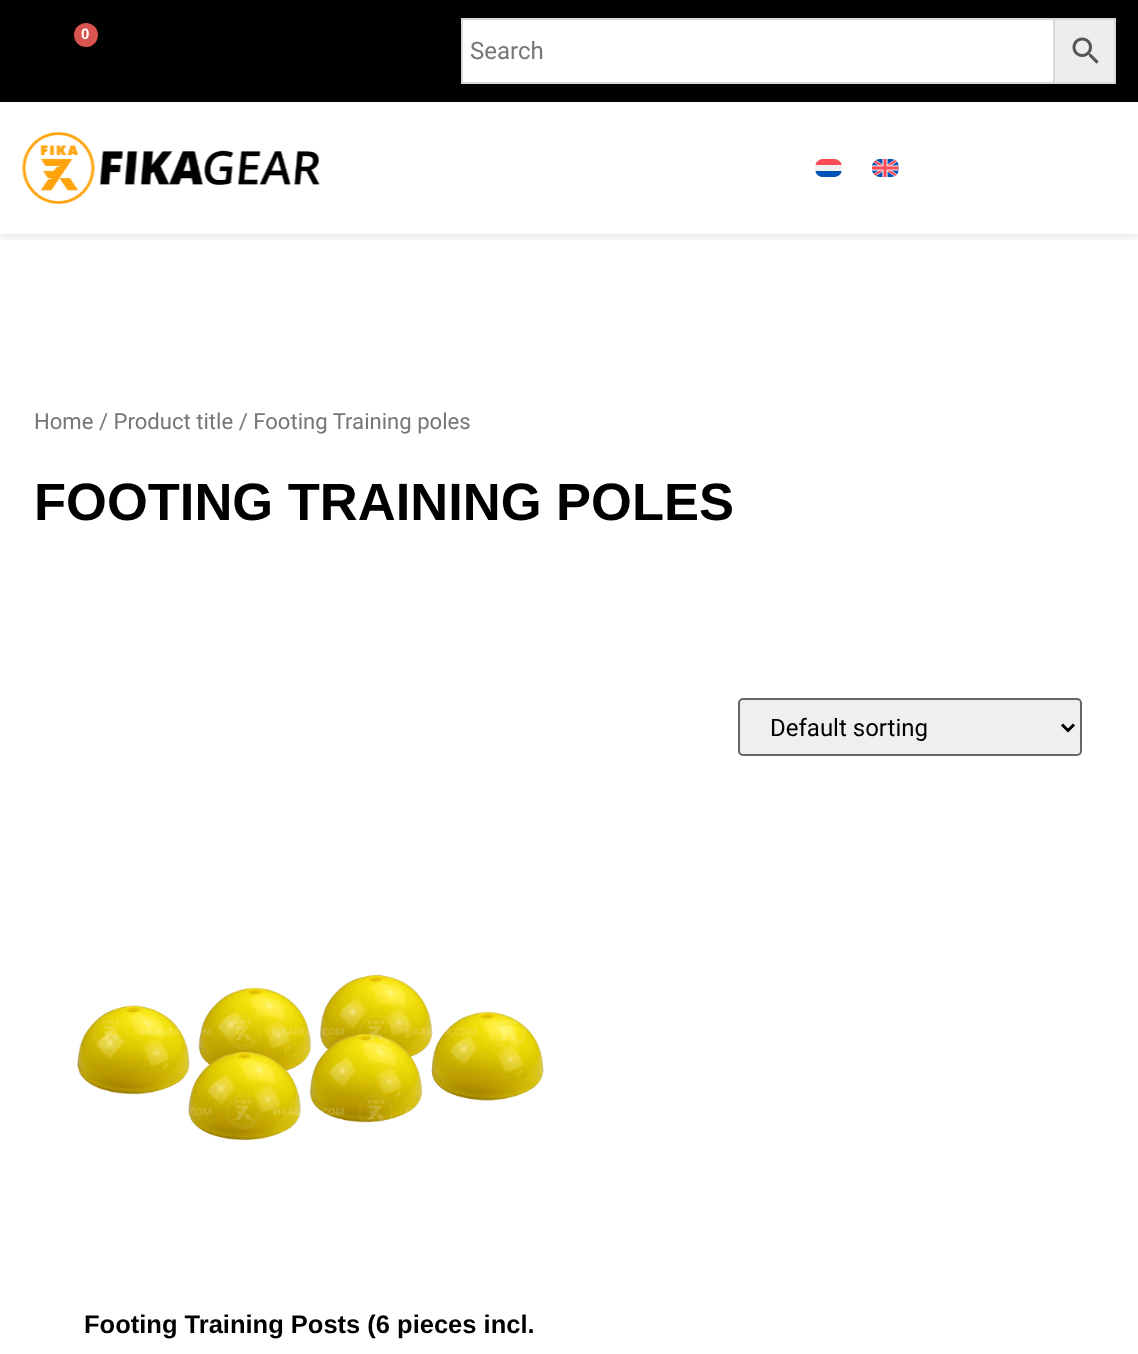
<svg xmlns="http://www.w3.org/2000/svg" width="1138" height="1354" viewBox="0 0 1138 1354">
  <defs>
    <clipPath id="clip1"><rect x="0" y="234" width="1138" height="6"/></clipPath>
    <clipPath id="clip2"><rect x="815" y="159" width="27" height="18"/></clipPath>
  </defs>
  <rect width="100%" height="100%" fill="rgb(255,255,255)"/>
  <g clip-path="url(#clip1)">
    <rect x="0" y="3" width="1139" height="234" fill="rgba(0,0,0,0.1)" filter="blur(4px)"/>
  </g>
  <rect x="0" y="0" width="1138" height="102" fill="rgb(0,0,0)"/>
  <circle cx="86" cy="35" r="12" fill="rgb(217,83,79)"/>
  <text x="81" y="39" font-family="Liberation Sans" font-size="15" font-weight="bold" fill="rgb(255,255,255)">0</text>
  <rect x="1054" y="19" width="61" height="64" fill="rgb(237,237,237)" stroke="rgb(216,216,216)" stroke-width="2"/>
  <rect x="462" y="19" width="592" height="64" fill="rgb(255,255,255)" stroke="rgb(216,216,216)" stroke-width="2"/>
  <text x="470" y="59" font-family="Roboto" font-size="24" fill="rgb(118,118,118)">Search</text>
  <image x="1072" y="37" width="27" height="27" href="pic1.png"/>
  <image x="22" y="132" width="298" height="72" href="pic2.png"/>
  <g clip-path="url(#clip2)">
    <path d="M823 159C826.5 159 833.5 158.5 836.5 159.5C838.5 160 841 162 841.5 164V168C841.5 172 841.5 174 837.5 176C835 177.5 826 177 823 177C812 176.5 812.5 159 823 159Z" fill="rgb(240,240,240)"/>
  </g>
  <path d="M823 159H834C837.5 159 840.5 161 841.5 164V165H815.5C816 161.5 819.5 159 823 159Z" fill="rgb(255,75,85)"/>
  <path d="M834 177H823C819 177 816 174.5 815.5 171H841.5C841.5 174.5 837.5 177 834 177Z" fill="rgb(0,82,180)"/>
  <image x="872" y="159" width="27" height="18" href="pic3.png"/>
  <text x="34" y="429" font-family="Roboto" font-size="22.1" fill="rgb(118,118,118)">Home / Product title / Footing Training poles</text>
  <text x="34" y="520" font-family="Liberation Sans" font-size="52.5" font-weight="bold" fill="rgb(0,0,0)">FOOTING TRAINING POLES</text>
  <rect x="739" y="699" width="342" height="56" rx="4" fill="rgb(239,239,239)" stroke="rgb(102,102,102)" stroke-width="2"/>
  <path d="M1062 724.5L1068 730.5L1074 724.5" fill="none" stroke="rgb(0,0,0)" stroke-width="3"/>
  <text x="770" y="736" font-family="Roboto" font-size="24" fill="rgb(0,0,0)">Default sorting</text>
  <image x="77" y="975" width="467" height="165" href="pic4.png"/>
  <text x="84" y="1333" font-family="Liberation Sans" font-size="25.5" font-weight="bold" fill="rgb(0,0,0)">Footing Training Posts (6 pieces incl.</text>
</svg>
